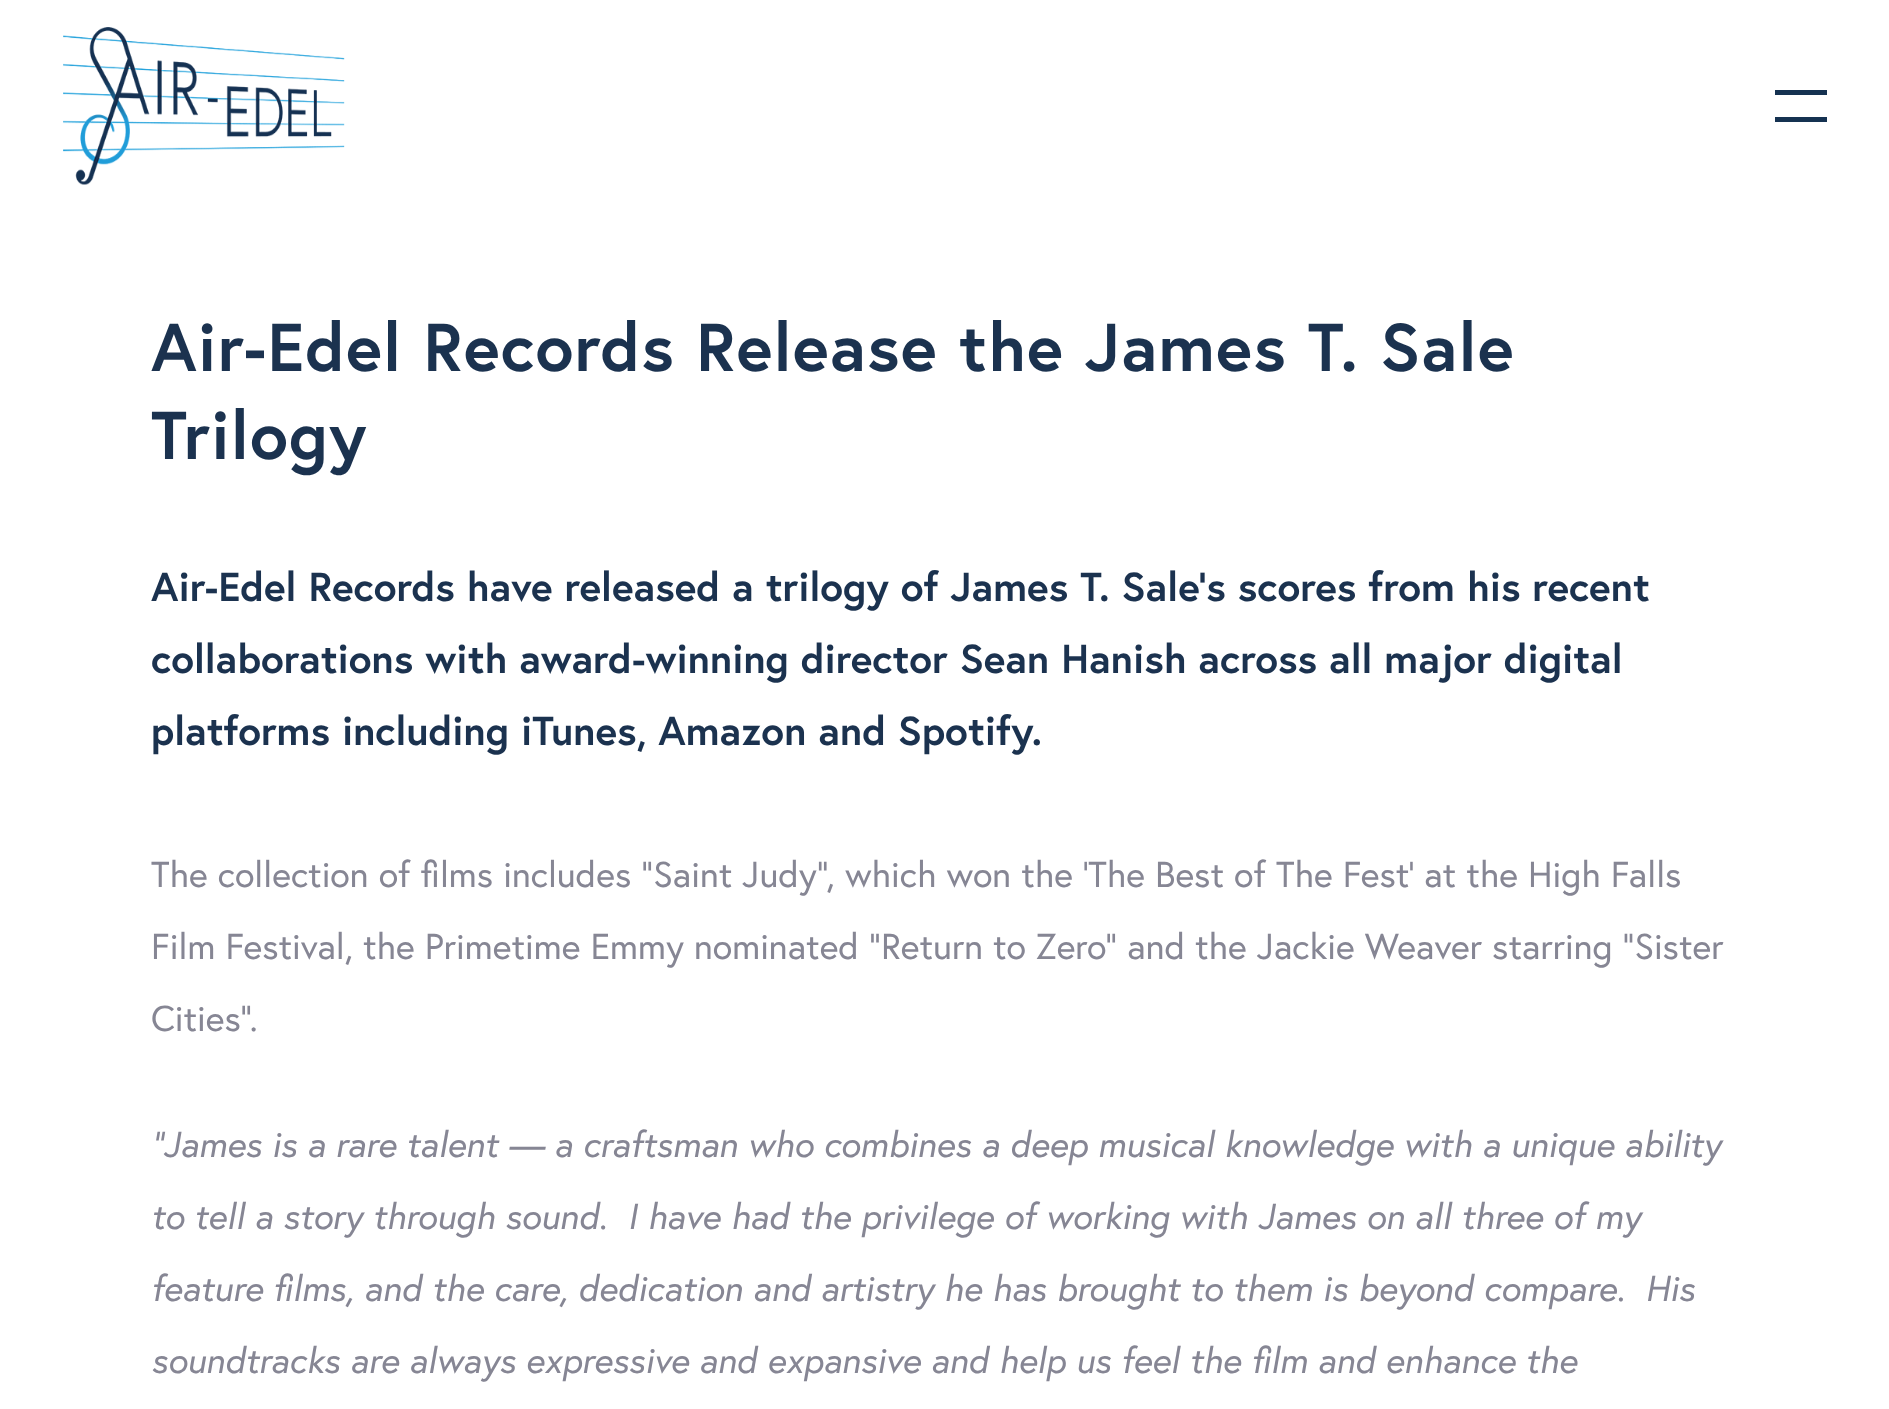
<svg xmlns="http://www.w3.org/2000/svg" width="1889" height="1409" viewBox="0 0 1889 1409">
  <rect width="100%" height="100%" fill="rgb(255,255,255)"/>
  <image x="63" y="27" width="282" height="158" href="pic1.png"/>
  <rect x="1775" y="90" width="52" height="5" fill="rgb(21,50,81)"/>
  <rect x="1775" y="117" width="52" height="5" fill="rgb(21,50,81)"/>
  <g font-family="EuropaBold" font-size="67.5" font-weight="bold" letter-spacing="1.1" fill="rgb(27,50,79)">
    <text>
      <tspan x="151" y="371">Air-Edel Records Release the James T. Sale</tspan>
      <tspan x="151" y="459">Trilogy</tspan>
    </text>
  </g>
  <g font-family="EuropaBold" font-size="40.5" font-weight="bold" fill="rgb(27,50,79)">
    <text>
      <tspan x="151" y="601">Air-Edel Records have released a trilogy of James T. Sale’s scores from his recent</tspan>
      <tspan x="151" y="673">collaborations with award-winning director Sean Hanish across all major digital</tspan>
      <tspan x="151" y="745">platforms including iTunes, Amazon and Spotify.</tspan>
    </text>
  </g>
  <g font-family="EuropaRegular" font-size="36" fill="rgb(134,134,148)">
    <text x="151" y="887">The collection of films includes “Saint Judy”, which won the ‘The Best of The Fest’ at the High Falls</text>
    <text x="151" y="959">Film Festival, the Primetime Emmy nominated “Return to Zero” and the Jackie Weaver starring “Sister</text>
    <text x="151" y="1031">Cities”.</text>
  </g>
  <g font-family="EuropaRegular" font-size="36" font-style="italic" fill="rgb(134,134,148)">
    <text x="151" y="1157">“James is a rare talent — a craftsman who combines a deep musical knowledge with a unique ability</text>
    <text x="151" y="1229" xml:space="preserve">to tell a story through sound.  I have had the privilege of working with James on all three of my</text>
    <text x="151" y="1301" xml:space="preserve">feature films, and the care, dedication and artistry he has brought to them is beyond compare.  His</text>
    <text x="151" y="1373">soundtracks are always expressive and expansive and help us feel the film and enhance the</text>
  </g>
</svg>
